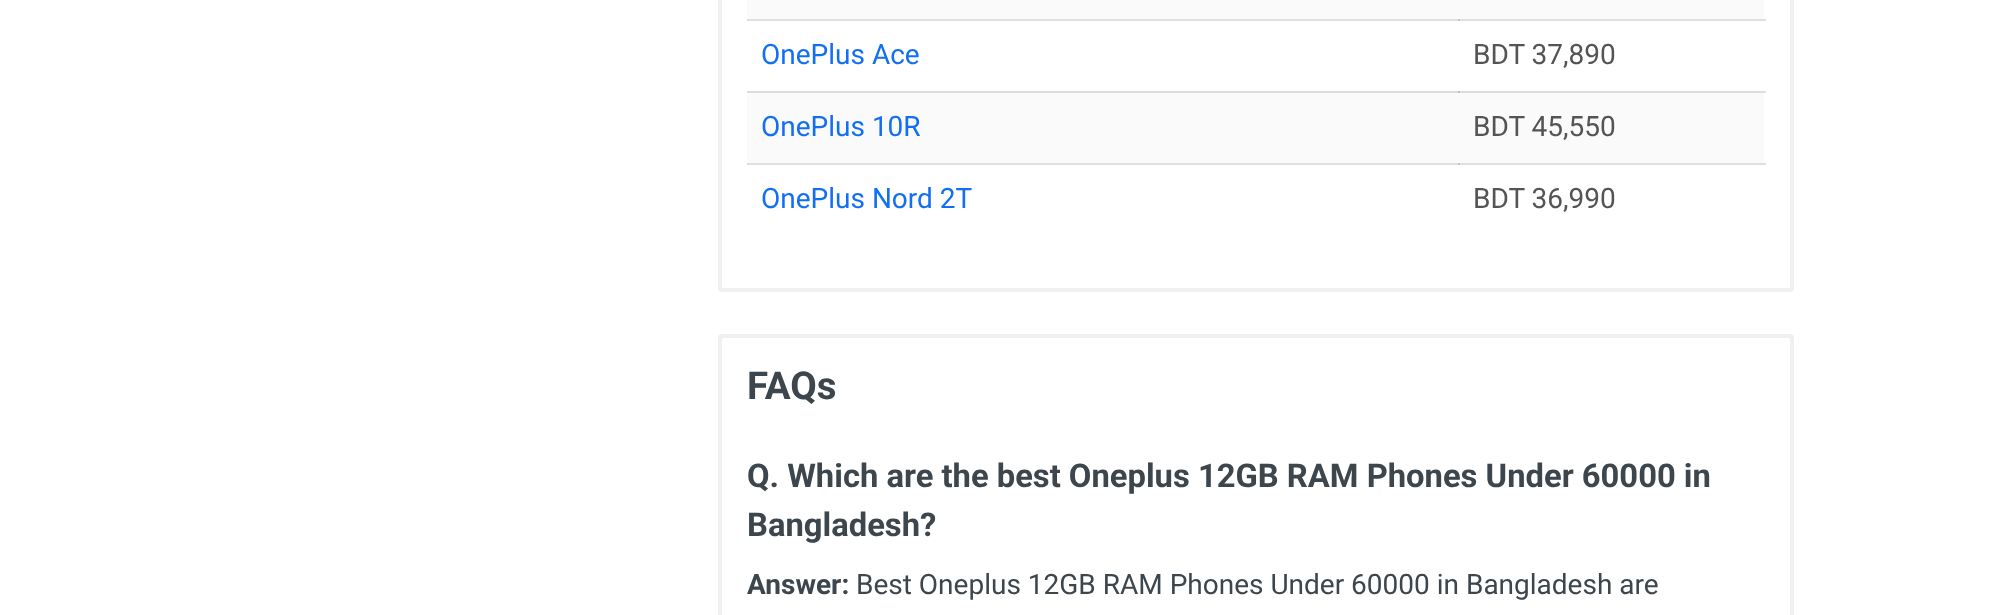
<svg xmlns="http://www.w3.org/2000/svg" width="2012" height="615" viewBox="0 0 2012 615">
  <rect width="100%" height="100%" fill="rgb(255,255,255)"/>
  <rect x="747" y="19" width="713" height="2" fill="rgb(224,224,224)"/>
  <rect x="1764" y="91" width="2" height="2" fill="rgb(224,224,224)"/>
  <rect x="747" y="163" width="713" height="2" fill="rgb(224,224,224)"/>
  <rect x="720" y="-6" width="1072" height="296" rx="2" fill="none" stroke="rgb(240,240,240)" stroke-width="4"/>
  <rect x="747" y="0" width="1017" height="19" fill="rgb(250,250,250)"/>
  <text x="761" y="64" font-family="Roboto" font-size="28" fill="rgb(18,111,242)">OnePlus Ace</text>
  <rect x="1458" y="19" width="308" height="2" fill="rgb(224,224,224)"/>
  <rect x="1458" y="19" width="2" height="2" fill="rgb(197,197,197)"/>
  <text x="1473" y="64" font-family="Roboto" font-size="28" fill="rgb(84,84,84)">BDT 37,890</text>
  <rect x="747" y="93" width="1017" height="70" fill="rgb(250,250,250)"/>
  <rect x="747" y="91" width="1017" height="2" fill="rgb(220,220,220)"/>
  <rect x="1458" y="91" width="2" height="2" fill="rgb(194,194,194)"/>
  <text x="761" y="136" font-family="Roboto" font-size="28" fill="rgb(18,111,242)">OnePlus 10R</text>
  <text x="1473" y="136" font-family="Roboto" font-size="28" fill="rgb(84,84,84)">BDT 45,550</text>
  <text x="761" y="208" font-family="Roboto" font-size="28" fill="rgb(18,111,242)">OnePlus Nord 2T</text>
  <rect x="1458" y="163" width="308" height="2" fill="rgb(224,224,224)"/>
  <rect x="1458" y="163" width="2" height="2" fill="rgb(197,197,197)"/>
  <text x="1473" y="208" font-family="Roboto" font-size="28" fill="rgb(84,84,84)">BDT 36,990</text>
  <rect x="720" y="336" width="1072" height="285" rx="2" fill="none" stroke="rgb(240,240,240)" stroke-width="4"/>
  <text x="747" y="399" font-family="Roboto" font-size="38.5" font-weight="bold" fill="rgb(61,70,77)">FAQs</text>
  <g font-family="Roboto" font-size="32.75" font-weight="bold" fill="rgb(61,70,77)">
    <text>
      <tspan x="747" y="487">Q. Which are the best Oneplus 12GB RAM Phones Under 60000 in</tspan>
      <tspan x="747" y="536">Bangladesh?</tspan>
    </text>
  </g>
  <text x="747" y="594" font-family="Roboto" font-size="28" font-weight="bold" fill="rgb(61,70,77)">Answer:</text>
  <text x="856" y="594" font-family="Roboto" font-size="28" fill="rgb(61,70,77)">Best Oneplus 12GB RAM Phones Under 60000 in Bangladesh are</text>
</svg>
